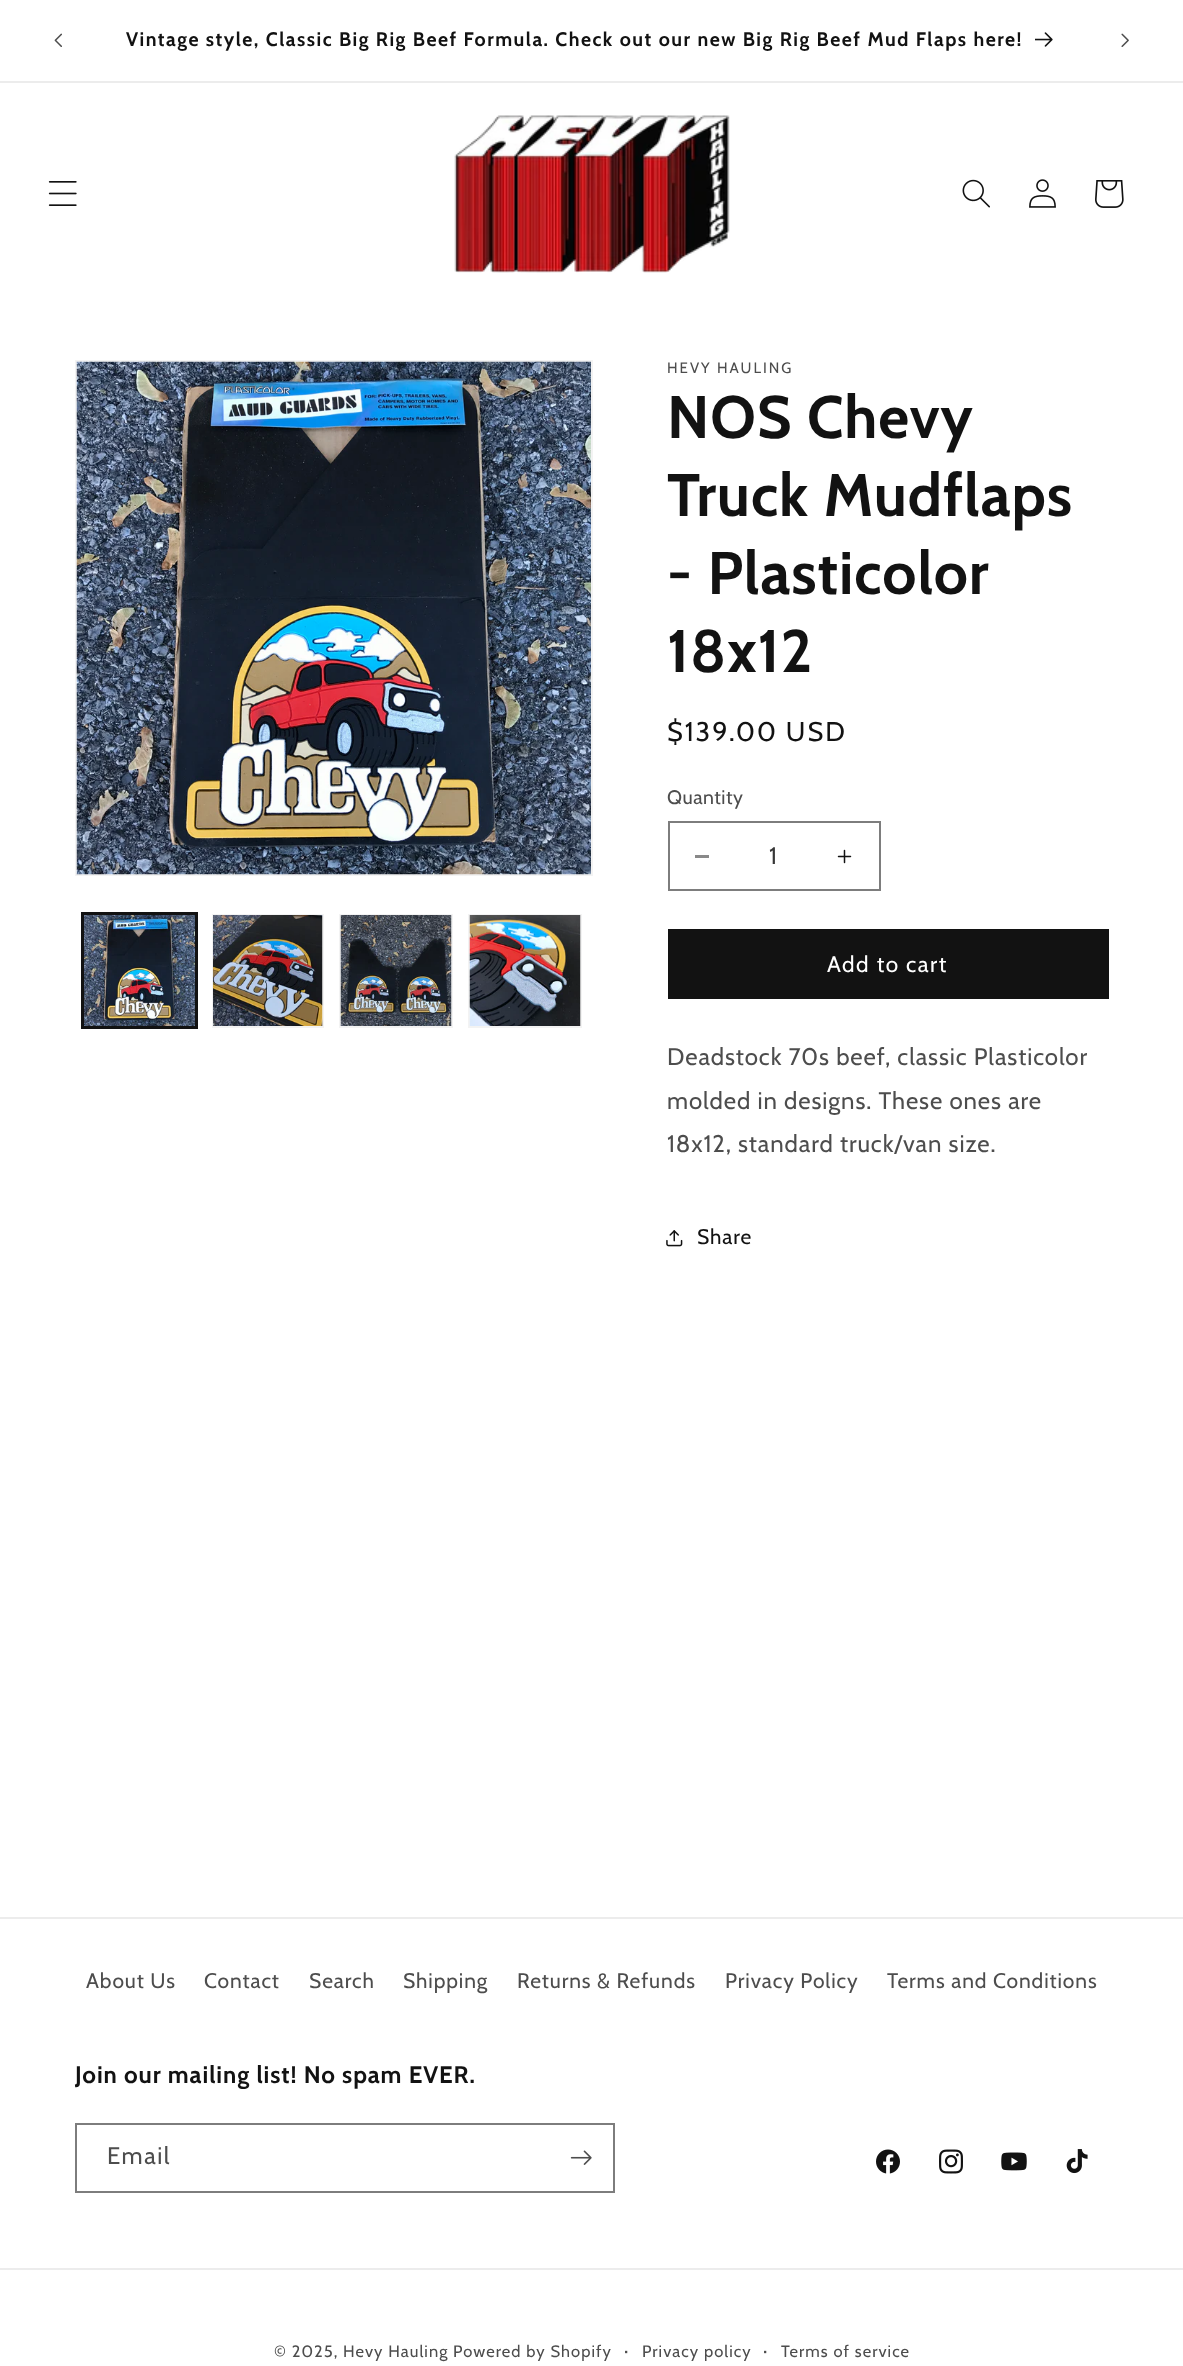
<svg xmlns="http://www.w3.org/2000/svg" width="1183" height="2366" viewBox="0 0 1183 2366">
  <rect width="100%" height="100%" fill="rgb(255,255,255)"/>
  <rect x="0" y="81" width="1183" height="2" fill="rgb(236,236,236)"/>
  <image x="54" y="33" width="8" height="14" href="pic1.png"/>
  <text x="126" y="46" font-family="Cabin" font-size="19.5" font-weight="bold" letter-spacing="1.5" fill="rgb(18,18,18)">Vintage style, Classic Big Rig Beef Formula. Check out our new Big Rig Beef Mud Flaps here!</text>
  <image x="1035" y="32" width="18" height="15" href="pic2.png"/>
  <image x="1121" y="33" width="8" height="14" href="pic3.png"/>
  <image x="48" y="181" width="29" height="25" href="pic4.png"/>
  <image x="454" y="115" width="276" height="158" href="pic5.png"/>
  <image x="962" y="179" width="28" height="29" href="pic6.png"/>
  <image x="1029" y="179" width="27" height="29" href="pic7.png"/>
  <image x="1095" y="180" width="29" height="28" href="pic8.png"/>
  <rect x="76" y="361" width="516" height="514" fill="none" stroke="rgb(243,243,243)" stroke-width="2"/>
  <image x="76" y="361" width="515" height="514" href="pic9.png"/>
  <rect x="82" y="913" width="115" height="115" fill="none" stroke="rgb(18,18,18)" stroke-width="2"/>
  <rect x="84" y="915" width="112" height="112" fill="none" stroke="rgb(18,18,18)" stroke-width="2"/>
  <image x="84" y="915" width="111" height="111" href="pic10.png"/>
  <rect x="213" y="915" width="110" height="112" fill="none" stroke="rgb(243,243,243)" stroke-width="2"/>
  <image x="213" y="915" width="110" height="111" href="pic11.png"/>
  <rect x="340" y="915" width="112" height="112" fill="none" stroke="rgb(243,243,243)" stroke-width="2"/>
  <image x="340" y="915" width="112" height="111" href="pic12.png"/>
  <rect x="469" y="915" width="112" height="112" fill="none" stroke="rgb(243,243,243)" stroke-width="2"/>
  <image x="469" y="915" width="112" height="111" href="pic13.png"/>
  <text x="667" y="373" font-family="Cabin" font-size="15" letter-spacing="2" fill="rgb(77,77,77)">HEVY HAULING</text>
  <g font-family="Cabin" font-size="60" font-weight="bold" letter-spacing="0.9" fill="rgb(18,18,18)">
    <text>
      <tspan x="667" y="438">NOS Chevy</tspan>
      <tspan x="667" y="516">Truck Mudflaps</tspan>
      <tspan x="667" y="594">- Plasticolor</tspan>
      <tspan x="667" y="672">18x12</tspan>
    </text>
  </g>
  <text x="667" y="741" font-family="Cabin" font-size="27" letter-spacing="2" fill="rgb(18,18,18)">$139.00 USD</text>
  <text x="667" y="804" font-family="Cabin" font-size="19.5" letter-spacing="0.5" fill="rgb(77,77,77)">Quantity</text>
  <rect x="695" y="855" width="14" height="3" fill="rgb(137,137,137)"/>
  <image x="837" y="849" width="15" height="15" href="pic14.png"/>
  <rect x="669" y="822" width="211" height="68" fill="none" stroke="rgb(125,125,125)" stroke-width="2"/>
  <text x="769" y="864" font-family="Cabin" font-size="24" fill="rgb(54,54,54)">1</text>
  <rect x="668" y="929" width="441" height="70" fill="rgb(18,18,18)"/>
  <text x="827" y="972" font-family="Cabin" font-size="22.5" letter-spacing="1.5" fill="rgb(255,255,255)">Add to cart</text>
  <g font-family="Cabin" font-size="24" letter-spacing="0.9" fill="rgb(77,77,77)">
    <text>
      <tspan x="667" y="1065">Deadstock 70s beef, classic Plasticolor</tspan>
      <tspan x="667" y="1109">molded in designs. These ones are</tspan>
      <tspan x="667" y="1152">18x12, standard truck/van size.</tspan>
    </text>
  </g>
  <image x="666" y="1230" width="17" height="17" href="pic15.png"/>
  <text x="697" y="1244" font-family="Cabin" font-size="21" letter-spacing="0.9" fill="rgb(18,18,18)">Share</text>
  <rect x="0" y="1917" width="1183" height="2" fill="rgb(236,236,236)"/>
  <g font-family="Cabin" font-size="21" letter-spacing="0.9" fill="rgb(77,77,77)">
    <text x="86" y="1988">About Us</text>
    <text x="204" y="1988">Contact</text>
    <text x="309" y="1988">Search</text>
    <text x="403" y="1988">Shipping</text>
    <text x="517" y="1988">Returns &amp; Refunds</text>
    <text x="725" y="1988">Privacy Policy</text>
    <text x="887" y="1988">Terms and Conditions</text>
  </g>
  <text x="75" y="2083" font-family="Cabin" font-size="24" font-weight="bold" letter-spacing="0.9" fill="rgb(18,18,18)">Join our mailing list! No spam EVER.</text>
  <rect x="76" y="2124" width="538" height="68" fill="none" stroke="rgb(125,125,125)" stroke-width="2"/>
  <text x="107" y="2164" font-family="Cabin" font-size="24" letter-spacing="1.5" fill="rgb(77,77,77)">Email</text>
  <image x="570" y="2150" width="22" height="15" href="pic16.png"/>
  <image x="876" y="2149" width="24" height="25" href="pic17.png"/>
  <image x="939" y="2149" width="24" height="25" href="pic18.png"/>
  <image x="1001" y="2152" width="26" height="19" href="pic19.png"/>
  <image x="1066" y="2149" width="22" height="25" href="pic20.png"/>
  <rect x="0" y="2268" width="1183" height="2" fill="rgb(236,236,236)"/>
  <g font-family="Cabin" font-size="16.5" letter-spacing="1.05" fill="rgb(77,77,77)">
    <text x="274" y="2357">© 2025, Hevy Hauling</text>
    <text x="453" y="2357">Powered by Shopify</text>
  </g>
  <text x="624" y="2357" font-family="Cabin" font-size="18" letter-spacing="1.05" fill="rgb(77,77,77)">·</text>
  <text x="642" y="2357" font-family="Cabin" font-size="16.5" letter-spacing="1.05" fill="rgb(77,77,77)">Privacy policy</text>
  <text x="763" y="2357" font-family="Cabin" font-size="18" letter-spacing="1.05" fill="rgb(77,77,77)">·</text>
  <text x="781" y="2357" font-family="Cabin" font-size="16.5" letter-spacing="1.05" fill="rgb(77,77,77)">Terms of service</text>
</svg>
